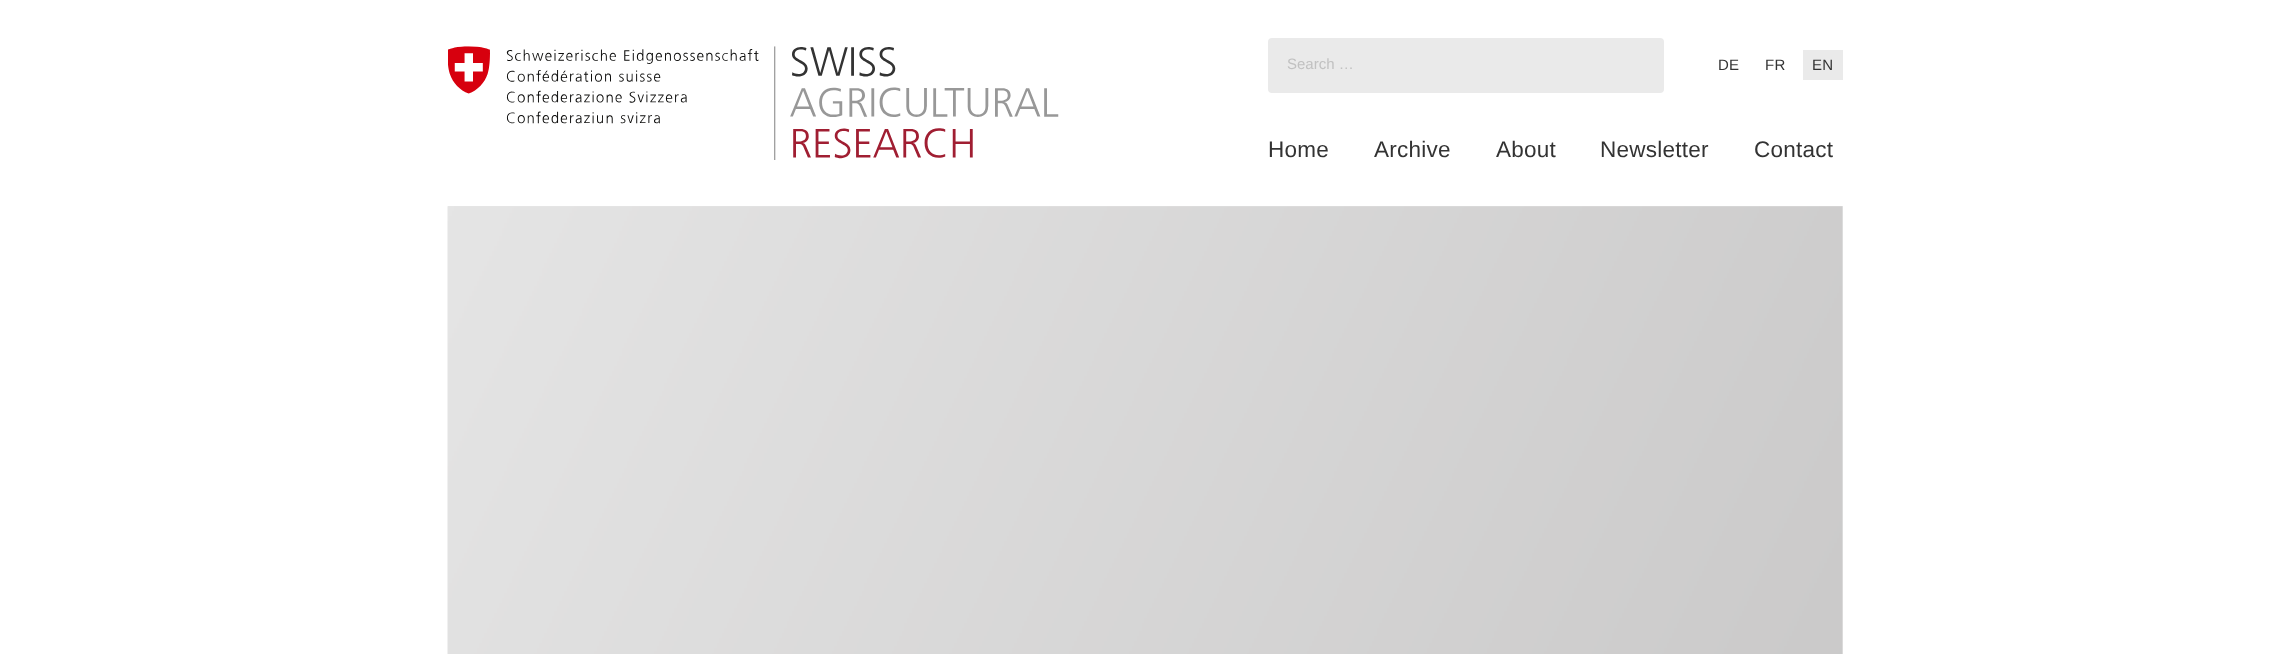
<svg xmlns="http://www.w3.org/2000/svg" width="2289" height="654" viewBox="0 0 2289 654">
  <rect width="100%" height="100%" fill="rgb(255,255,255)"/>
  <image x="448" y="46" width="611" height="114" href="pic1.png"/>
  <rect x="1268" y="38" width="396" height="55" rx="4" fill="rgb(234,234,234)"/>
  <text x="1287" y="69" font-family="Liberation Sans" font-size="15" fill="rgb(193,193,193)">Search …</text>
  <g font-family="Liberation Sans" font-size="15" letter-spacing="0.25" fill="rgb(51,51,51)">
    <text x="1718" y="70">DE</text>
    <text x="1765" y="70">FR</text>
  </g>
  <rect x="1803" y="50" width="40" height="30" fill="rgb(234,234,234)"/>
  <text x="1812" y="70" font-family="Liberation Sans" font-size="15" letter-spacing="0.25" fill="rgb(51,51,51)">EN</text>
  <g font-family="Liberation Sans" font-size="22.5" letter-spacing="0.25" fill="rgb(51,51,51)">
    <text x="1268" y="157">Home</text>
    <text x="1374" y="157">Archive</text>
    <text x="1496" y="157">About</text>
    <text x="1600" y="157">Newsletter</text>
    <text x="1754" y="157">Contact</text>
  </g>
  <rect x="448" y="206" width="1395" height="448" fill="rgb(234,234,234)"/>
  <image x="447" y="206" width="1396" height="448" href="pic2.png"/>
</svg>
